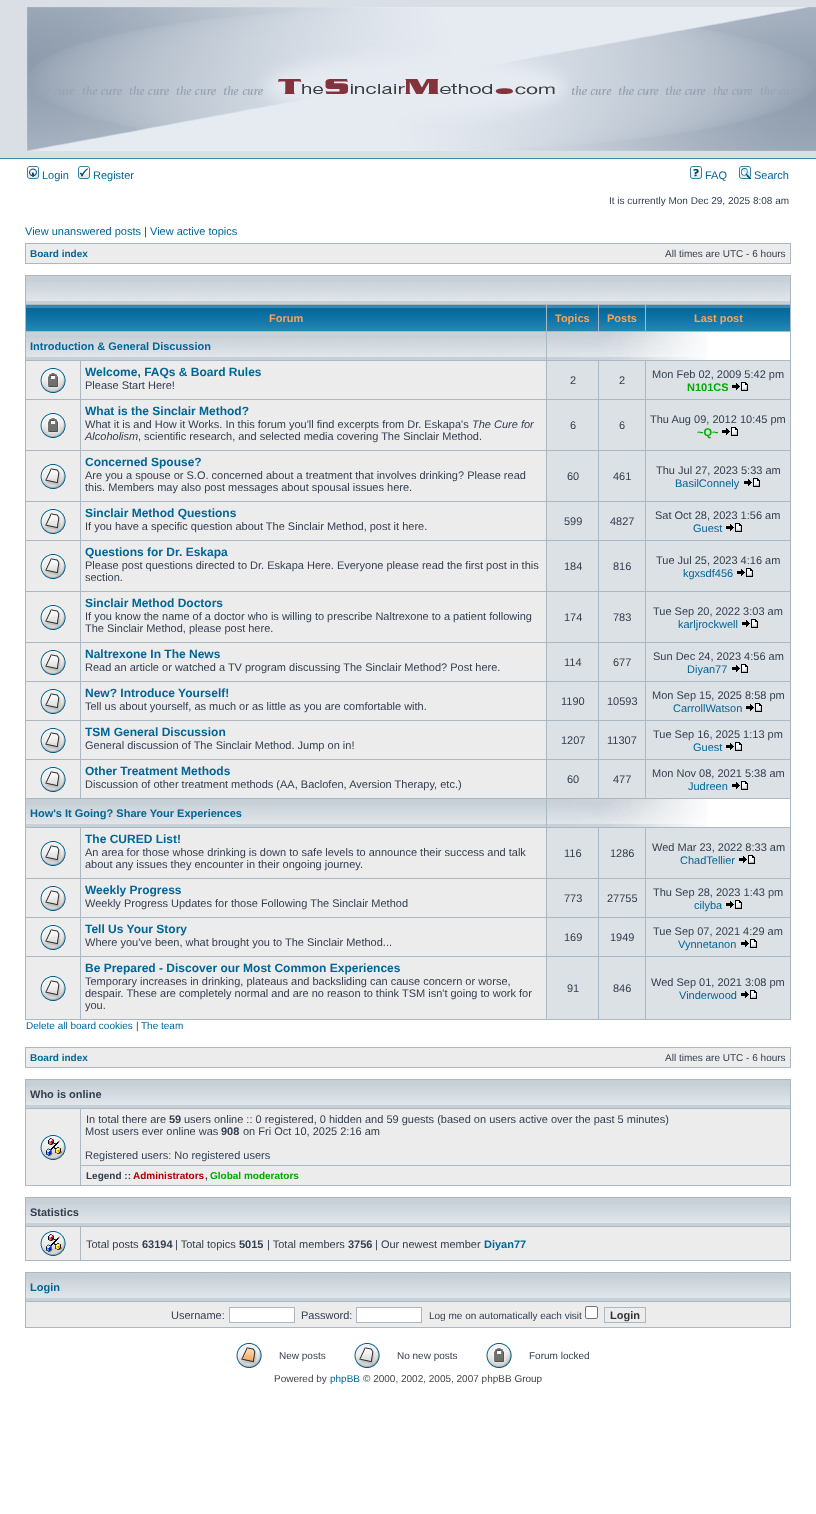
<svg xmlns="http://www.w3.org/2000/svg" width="816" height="1514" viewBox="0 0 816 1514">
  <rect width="100%" height="100%" fill="rgb(255,255,255)"/>
  <rect x="0" y="0" width="816" height="158" fill="rgb(217,223,228)"/>
  <rect x="0" y="158" width="816" height="1" fill="rgb(71,135,167)"/>
  <image x="27" y="7" width="789" height="144" href="pic1.png"/>
  <image x="27" y="166" width="12" height="13" href="pic2.png"/>
  <text x="42" y="179" font-family="Liberation Sans" font-size="11" fill="rgb(0,101,151)">Login</text>
  <image x="78" y="166" width="12" height="13" href="pic3.png"/>
  <text x="93" y="179" font-family="Liberation Sans" font-size="11" fill="rgb(0,101,151)">Register</text>
  <image x="690" y="166" width="12" height="13" href="pic4.png"/>
  <text x="705" y="179" font-family="Liberation Sans" font-size="11" fill="rgb(0,101,151)">FAQ</text>
  <image x="739" y="166" width="12" height="13" href="pic5.png"/>
  <text x="754" y="179" font-family="Liberation Sans" font-size="11" fill="rgb(0,101,151)">Search</text>
  <text x="609" y="204" font-family="Liberation Sans" font-size="10" fill="rgb(50,61,79)">It is currently Mon Dec 29, 2025 8:08 am</text>
  <text x="25" y="235" font-family="Liberation Sans" font-size="11" fill="rgb(0,101,151)">View unanswered posts</text>
  <text x="144" y="235" font-family="Liberation Sans" font-size="11" fill="rgb(50,61,79)">|</text>
  <text x="150" y="235" font-family="Liberation Sans" font-size="11" fill="rgb(0,101,151)">View active topics</text>
  <rect x="25" y="243" width="766" height="21" fill="rgb(169,184,194)"/>
  <rect x="26" y="244" width="764" height="19" fill="rgb(236,236,236)"/>
  <text x="30" y="257" font-family="Liberation Sans" font-size="10" font-weight="bold" fill="rgb(0,101,151)">Board index</text>
  <text x="665" y="257" font-family="Liberation Sans" font-size="10" fill="rgb(50,61,79)">All times are UTC - 6 hours</text>
  <rect x="25" y="275" width="766" height="745" fill="rgb(169,184,194)"/>
  <rect x="26" y="276" width="764" height="28" fill="rgb(199,208,215)"/>
  <image x="26" y="282" width="764" height="19" href="pic6.png"/>
  <image x="26" y="305" width="520" height="26" href="pic7.png"/>
  <text x="269" y="322" font-family="Liberation Sans" font-size="11" font-weight="bold" fill="rgb(255,163,79)">Forum</text>
  <image x="547" y="305" width="51" height="26" href="pic8.png"/>
  <text x="555" y="322" font-family="Liberation Sans" font-size="11" font-weight="bold" fill="rgb(255,163,79)">Topics</text>
  <image x="599" y="305" width="46" height="26" href="pic9.png"/>
  <text x="607" y="322" font-family="Liberation Sans" font-size="11" font-weight="bold" fill="rgb(255,163,79)">Posts</text>
  <image x="646" y="305" width="144" height="26" href="pic10.png"/>
  <text x="694" y="322" font-family="Liberation Sans" font-size="11" font-weight="bold" fill="rgb(255,163,79)">Last post</text>
  <rect x="26" y="332" width="520" height="28" fill="rgb(199,208,215)"/>
  <image x="26" y="338" width="520" height="19" href="pic11.png"/>
  <text x="30" y="350" font-family="Liberation Sans" font-size="11" font-weight="bold" fill="rgb(0,101,151)">Introduction &amp; General Discussion</text>
  <rect x="707" y="332" width="83" height="28" fill="rgb(255,255,255)"/>
  <image x="547" y="332" width="160" height="28" href="pic12.png"/>
  <rect x="26" y="361" width="54" height="38" fill="rgb(236,236,236)"/>
  <image x="40" y="368" width="26" height="25" href="pic13.png"/>
  <rect x="81" y="361" width="465" height="38" fill="rgb(236,236,236)"/>
  <text x="85" y="376" font-family="Liberation Sans" font-size="12" font-weight="bold" fill="rgb(0,101,151)">Welcome, FAQs &amp; Board Rules</text>
  <text x="85" y="389" font-family="Liberation Sans" font-size="11" fill="rgb(50,61,79)">Please Start Here!</text>
  <rect x="547" y="361" width="51" height="38" fill="rgb(220,225,229)"/>
  <text x="570" y="384" font-family="Liberation Sans" font-size="11" fill="rgb(50,61,79)">2</text>
  <rect x="599" y="361" width="46" height="38" fill="rgb(220,225,229)"/>
  <text x="619" y="384" font-family="Liberation Sans" font-size="11" fill="rgb(50,61,79)">2</text>
  <rect x="646" y="361" width="144" height="38" fill="rgb(220,225,229)"/>
  <text x="652" y="378" font-family="Liberation Sans" font-size="11" fill="rgb(50,61,79)">Mon Feb 02, 2009 5:42 pm</text>
  <text x="687" y="391" font-family="Liberation Sans" font-size="11" font-weight="bold" fill="rgb(0,170,0)">N101CS</text>
  <image x="732" y="382" width="16" height="9" href="pic14.png"/>
  <rect x="26" y="400" width="54" height="50" fill="rgb(236,236,236)"/>
  <image x="40" y="413" width="26" height="25" href="pic13.png"/>
  <rect x="81" y="400" width="465" height="50" fill="rgb(236,236,236)"/>
  <text x="85" y="415" font-family="Liberation Sans" font-size="12" font-weight="bold" fill="rgb(0,101,151)">What is the Sinclair Method?</text>
  <text x="85" y="428" font-family="Liberation Sans" font-size="11" fill="rgb(50,61,79)">What it is and How it Works. In this forum you'll find excerpts from Dr. Eskapa's</text>
  <g font-family="Liberation Sans" font-size="11" font-style="italic" fill="rgb(50,61,79)">
    <text x="472" y="428">The Cure for</text>
    <text x="85" y="440">Alcoholism</text>
  </g>
  <text x="138" y="440" font-family="Liberation Sans" font-size="11" fill="rgb(50,61,79)">, scientific research, and selected media covering The Sinclair Method.</text>
  <rect x="547" y="400" width="51" height="50" fill="rgb(220,225,229)"/>
  <text x="570" y="429" font-family="Liberation Sans" font-size="11" fill="rgb(50,61,79)">6</text>
  <rect x="599" y="400" width="46" height="50" fill="rgb(220,225,229)"/>
  <text x="619" y="429" font-family="Liberation Sans" font-size="11" fill="rgb(50,61,79)">6</text>
  <rect x="646" y="400" width="144" height="50" fill="rgb(220,225,229)"/>
  <text x="650" y="423" font-family="Liberation Sans" font-size="11" fill="rgb(50,61,79)">Thu Aug 09, 2012 10:45 pm</text>
  <text x="697" y="436" font-family="Liberation Sans" font-size="11" font-weight="bold" fill="rgb(0,170,0)">~Q~</text>
  <image x="722" y="427" width="16" height="9" href="pic14.png"/>
  <rect x="26" y="451" width="54" height="50" fill="rgb(236,236,236)"/>
  <image x="40" y="464" width="26" height="25" href="pic15.png"/>
  <rect x="81" y="451" width="465" height="50" fill="rgb(236,236,236)"/>
  <text x="85" y="466" font-family="Liberation Sans" font-size="12" font-weight="bold" fill="rgb(0,101,151)">Concerned Spouse?</text>
  <g font-family="Liberation Sans" font-size="11" fill="rgb(50,61,79)">
    <text>
      <tspan x="85" y="479">Are you a spouse or S.O. concerned about a treatment that involves drinking? Please read</tspan>
      <tspan x="85" y="491">this. Members may also post messages about spousal issues here.</tspan>
    </text>
  </g>
  <rect x="547" y="451" width="51" height="50" fill="rgb(220,225,229)"/>
  <text x="567" y="480" font-family="Liberation Sans" font-size="11" fill="rgb(50,61,79)">60</text>
  <rect x="599" y="451" width="46" height="50" fill="rgb(220,225,229)"/>
  <text x="613" y="480" font-family="Liberation Sans" font-size="11" fill="rgb(50,61,79)">461</text>
  <rect x="646" y="451" width="144" height="50" fill="rgb(220,225,229)"/>
  <text x="656" y="474" font-family="Liberation Sans" font-size="11" fill="rgb(50,61,79)">Thu Jul 27, 2023 5:33 am</text>
  <text x="675" y="487" font-family="Liberation Sans" font-size="11" fill="rgb(0,101,151)">BasilConnely</text>
  <image x="744" y="478" width="16" height="9" href="pic14.png"/>
  <rect x="26" y="502" width="54" height="38" fill="rgb(236,236,236)"/>
  <image x="40" y="509" width="26" height="25" href="pic15.png"/>
  <rect x="81" y="502" width="465" height="38" fill="rgb(236,236,236)"/>
  <text x="85" y="517" font-family="Liberation Sans" font-size="12" font-weight="bold" fill="rgb(0,101,151)">Sinclair Method Questions</text>
  <text x="85" y="530" font-family="Liberation Sans" font-size="11" fill="rgb(50,61,79)">If you have a specific question about The Sinclair Method, post it here.</text>
  <rect x="547" y="502" width="51" height="38" fill="rgb(220,225,229)"/>
  <text x="564" y="525" font-family="Liberation Sans" font-size="11" fill="rgb(50,61,79)">599</text>
  <rect x="599" y="502" width="46" height="38" fill="rgb(220,225,229)"/>
  <text x="610" y="525" font-family="Liberation Sans" font-size="11" fill="rgb(50,61,79)">4827</text>
  <rect x="646" y="502" width="144" height="38" fill="rgb(220,225,229)"/>
  <text x="655" y="519" font-family="Liberation Sans" font-size="11" fill="rgb(50,61,79)">Sat Oct 28, 2023 1:56 am</text>
  <text x="693" y="532" font-family="Liberation Sans" font-size="11" fill="rgb(0,101,151)">Guest</text>
  <image x="726" y="523" width="16" height="9" href="pic14.png"/>
  <rect x="26" y="541" width="54" height="50" fill="rgb(236,236,236)"/>
  <image x="40" y="554" width="26" height="25" href="pic15.png"/>
  <rect x="81" y="541" width="465" height="50" fill="rgb(236,236,236)"/>
  <text x="85" y="556" font-family="Liberation Sans" font-size="12" font-weight="bold" fill="rgb(0,101,151)">Questions for Dr. Eskapa</text>
  <g font-family="Liberation Sans" font-size="11" fill="rgb(50,61,79)">
    <text>
      <tspan x="85" y="569">Please post questions directed to Dr. Eskapa Here. Everyone please read the first post in this</tspan>
      <tspan x="85" y="581">section.</tspan>
    </text>
  </g>
  <rect x="547" y="541" width="51" height="50" fill="rgb(220,225,229)"/>
  <text x="564" y="570" font-family="Liberation Sans" font-size="11" fill="rgb(50,61,79)">184</text>
  <rect x="599" y="541" width="46" height="50" fill="rgb(220,225,229)"/>
  <text x="613" y="570" font-family="Liberation Sans" font-size="11" fill="rgb(50,61,79)">816</text>
  <rect x="646" y="541" width="144" height="50" fill="rgb(220,225,229)"/>
  <text x="656" y="564" font-family="Liberation Sans" font-size="11" fill="rgb(50,61,79)">Tue Jul 25, 2023 4:16 am</text>
  <text x="683" y="577" font-family="Liberation Sans" font-size="11" fill="rgb(0,101,151)">kgxsdf456</text>
  <image x="737" y="568" width="16" height="9" href="pic14.png"/>
  <rect x="26" y="592" width="54" height="50" fill="rgb(236,236,236)"/>
  <image x="40" y="605" width="26" height="25" href="pic15.png"/>
  <rect x="81" y="592" width="465" height="50" fill="rgb(236,236,236)"/>
  <text x="85" y="607" font-family="Liberation Sans" font-size="12" font-weight="bold" fill="rgb(0,101,151)">Sinclair Method Doctors</text>
  <g font-family="Liberation Sans" font-size="11" fill="rgb(50,61,79)">
    <text>
      <tspan x="85" y="620">If you know the name of a doctor who is willing to prescribe Naltrexone to a patient following</tspan>
      <tspan x="85" y="632">The Sinclair Method, please post here.</tspan>
    </text>
  </g>
  <rect x="547" y="592" width="51" height="50" fill="rgb(220,225,229)"/>
  <text x="564" y="621" font-family="Liberation Sans" font-size="11" fill="rgb(50,61,79)">174</text>
  <rect x="599" y="592" width="46" height="50" fill="rgb(220,225,229)"/>
  <text x="613" y="621" font-family="Liberation Sans" font-size="11" fill="rgb(50,61,79)">783</text>
  <rect x="646" y="592" width="144" height="50" fill="rgb(220,225,229)"/>
  <text x="653" y="615" font-family="Liberation Sans" font-size="11" fill="rgb(50,61,79)">Tue Sep 20, 2022 3:03 am</text>
  <text x="678" y="628" font-family="Liberation Sans" font-size="11" fill="rgb(0,101,151)">karljrockwell</text>
  <image x="742" y="619" width="16" height="9" href="pic14.png"/>
  <rect x="26" y="643" width="54" height="38" fill="rgb(236,236,236)"/>
  <image x="40" y="650" width="26" height="25" href="pic15.png"/>
  <rect x="81" y="643" width="465" height="38" fill="rgb(236,236,236)"/>
  <text x="85" y="658" font-family="Liberation Sans" font-size="12" font-weight="bold" fill="rgb(0,101,151)">Naltrexone In The News</text>
  <text x="85" y="671" font-family="Liberation Sans" font-size="11" fill="rgb(50,61,79)">Read an article or watched a TV program discussing The Sinclair Method? Post here.</text>
  <rect x="547" y="643" width="51" height="38" fill="rgb(220,225,229)"/>
  <text x="564" y="666" font-family="Liberation Sans" font-size="11" fill="rgb(50,61,79)">114</text>
  <rect x="599" y="643" width="46" height="38" fill="rgb(220,225,229)"/>
  <text x="613" y="666" font-family="Liberation Sans" font-size="11" fill="rgb(50,61,79)">677</text>
  <rect x="646" y="643" width="144" height="38" fill="rgb(220,225,229)"/>
  <text x="653" y="660" font-family="Liberation Sans" font-size="11" fill="rgb(50,61,79)">Sun Dec 24, 2023 4:56 am</text>
  <text x="687" y="673" font-family="Liberation Sans" font-size="11" fill="rgb(0,101,151)">Diyan77</text>
  <image x="732" y="664" width="16" height="9" href="pic14.png"/>
  <rect x="26" y="682" width="54" height="38" fill="rgb(236,236,236)"/>
  <image x="40" y="689" width="26" height="25" href="pic15.png"/>
  <rect x="81" y="682" width="465" height="38" fill="rgb(236,236,236)"/>
  <text x="85" y="697" font-family="Liberation Sans" font-size="12" font-weight="bold" fill="rgb(0,101,151)">New? Introduce Yourself!</text>
  <text x="85" y="710" font-family="Liberation Sans" font-size="11" fill="rgb(50,61,79)">Tell us about yourself, as much or as little as you are comfortable with.</text>
  <rect x="547" y="682" width="51" height="38" fill="rgb(220,225,229)"/>
  <text x="561" y="705" font-family="Liberation Sans" font-size="11" fill="rgb(50,61,79)">1190</text>
  <rect x="599" y="682" width="46" height="38" fill="rgb(220,225,229)"/>
  <text x="607" y="705" font-family="Liberation Sans" font-size="11" fill="rgb(50,61,79)">10593</text>
  <rect x="646" y="682" width="144" height="38" fill="rgb(220,225,229)"/>
  <text x="652" y="699" font-family="Liberation Sans" font-size="11" fill="rgb(50,61,79)">Mon Sep 15, 2025 8:58 pm</text>
  <text x="673" y="712" font-family="Liberation Sans" font-size="11" fill="rgb(0,101,151)">CarrollWatson</text>
  <image x="746" y="703" width="16" height="9" href="pic14.png"/>
  <rect x="26" y="721" width="54" height="38" fill="rgb(236,236,236)"/>
  <image x="40" y="728" width="26" height="25" href="pic15.png"/>
  <rect x="81" y="721" width="465" height="38" fill="rgb(236,236,236)"/>
  <text x="85" y="736" font-family="Liberation Sans" font-size="12" font-weight="bold" fill="rgb(0,101,151)">TSM General Discussion</text>
  <text x="85" y="749" font-family="Liberation Sans" font-size="11" fill="rgb(50,61,79)">General discussion of The Sinclair Method. Jump on in!</text>
  <rect x="547" y="721" width="51" height="38" fill="rgb(220,225,229)"/>
  <text x="561" y="744" font-family="Liberation Sans" font-size="11" fill="rgb(50,61,79)">1207</text>
  <rect x="599" y="721" width="46" height="38" fill="rgb(220,225,229)"/>
  <text x="607" y="744" font-family="Liberation Sans" font-size="11" fill="rgb(50,61,79)">11307</text>
  <rect x="646" y="721" width="144" height="38" fill="rgb(220,225,229)"/>
  <text x="653" y="738" font-family="Liberation Sans" font-size="11" fill="rgb(50,61,79)">Tue Sep 16, 2025 1:13 pm</text>
  <text x="693" y="751" font-family="Liberation Sans" font-size="11" fill="rgb(0,101,151)">Guest</text>
  <image x="726" y="742" width="16" height="9" href="pic14.png"/>
  <rect x="26" y="760" width="54" height="38" fill="rgb(236,236,236)"/>
  <image x="40" y="767" width="26" height="25" href="pic15.png"/>
  <rect x="81" y="760" width="465" height="38" fill="rgb(236,236,236)"/>
  <text x="85" y="775" font-family="Liberation Sans" font-size="12" font-weight="bold" fill="rgb(0,101,151)">Other Treatment Methods</text>
  <text x="85" y="788" font-family="Liberation Sans" font-size="11" fill="rgb(50,61,79)">Discussion of other treatment methods (AA, Baclofen, Aversion Therapy, etc.)</text>
  <rect x="547" y="760" width="51" height="38" fill="rgb(220,225,229)"/>
  <text x="567" y="783" font-family="Liberation Sans" font-size="11" fill="rgb(50,61,79)">60</text>
  <rect x="599" y="760" width="46" height="38" fill="rgb(220,225,229)"/>
  <text x="613" y="783" font-family="Liberation Sans" font-size="11" fill="rgb(50,61,79)">477</text>
  <rect x="646" y="760" width="144" height="38" fill="rgb(220,225,229)"/>
  <text x="652" y="777" font-family="Liberation Sans" font-size="11" fill="rgb(50,61,79)">Mon Nov 08, 2021 5:38 am</text>
  <text x="688" y="790" font-family="Liberation Sans" font-size="11" fill="rgb(0,101,151)">Judreen</text>
  <image x="732" y="781" width="16" height="9" href="pic14.png"/>
  <rect x="26" y="799" width="520" height="28" fill="rgb(199,208,215)"/>
  <image x="26" y="805" width="520" height="19" href="pic11.png"/>
  <text x="30" y="817" font-family="Liberation Sans" font-size="11" font-weight="bold" fill="rgb(0,101,151)">How's It Going? Share Your Experiences</text>
  <rect x="707" y="799" width="83" height="28" fill="rgb(255,255,255)"/>
  <image x="547" y="799" width="160" height="28" href="pic12.png"/>
  <rect x="26" y="828" width="54" height="50" fill="rgb(236,236,236)"/>
  <image x="40" y="841" width="26" height="25" href="pic15.png"/>
  <rect x="81" y="828" width="465" height="50" fill="rgb(236,236,236)"/>
  <text x="85" y="843" font-family="Liberation Sans" font-size="12" font-weight="bold" fill="rgb(0,101,151)">The CURED List!</text>
  <g font-family="Liberation Sans" font-size="11" fill="rgb(50,61,79)">
    <text>
      <tspan x="85" y="856">An area for those whose drinking is down to safe levels to announce their success and talk</tspan>
      <tspan x="85" y="868">about any issues they encounter in their ongoing journey.</tspan>
    </text>
  </g>
  <rect x="547" y="828" width="51" height="50" fill="rgb(220,225,229)"/>
  <text x="564" y="857" font-family="Liberation Sans" font-size="11" fill="rgb(50,61,79)">116</text>
  <rect x="599" y="828" width="46" height="50" fill="rgb(220,225,229)"/>
  <text x="610" y="857" font-family="Liberation Sans" font-size="11" fill="rgb(50,61,79)">1286</text>
  <rect x="646" y="828" width="144" height="50" fill="rgb(220,225,229)"/>
  <text x="652" y="851" font-family="Liberation Sans" font-size="11" fill="rgb(50,61,79)">Wed Mar 23, 2022 8:33 am</text>
  <text x="680" y="864" font-family="Liberation Sans" font-size="11" fill="rgb(0,101,151)">ChadTellier</text>
  <image x="739" y="855" width="16" height="9" href="pic14.png"/>
  <rect x="26" y="879" width="54" height="38" fill="rgb(236,236,236)"/>
  <image x="40" y="886" width="26" height="25" href="pic15.png"/>
  <rect x="81" y="879" width="465" height="38" fill="rgb(236,236,236)"/>
  <text x="85" y="894" font-family="Liberation Sans" font-size="12" font-weight="bold" fill="rgb(0,101,151)">Weekly Progress</text>
  <text x="85" y="907" font-family="Liberation Sans" font-size="11" fill="rgb(50,61,79)">Weekly Progress Updates for those Following The Sinclair Method</text>
  <rect x="547" y="879" width="51" height="38" fill="rgb(220,225,229)"/>
  <text x="564" y="902" font-family="Liberation Sans" font-size="11" fill="rgb(50,61,79)">773</text>
  <rect x="599" y="879" width="46" height="38" fill="rgb(220,225,229)"/>
  <text x="607" y="902" font-family="Liberation Sans" font-size="11" fill="rgb(50,61,79)">27755</text>
  <rect x="646" y="879" width="144" height="38" fill="rgb(220,225,229)"/>
  <text x="653" y="896" font-family="Liberation Sans" font-size="11" fill="rgb(50,61,79)">Thu Sep 28, 2023 1:43 pm</text>
  <text x="694" y="909" font-family="Liberation Sans" font-size="11" fill="rgb(0,101,151)">cilyba</text>
  <image x="726" y="900" width="16" height="9" href="pic14.png"/>
  <rect x="26" y="918" width="54" height="38" fill="rgb(236,236,236)"/>
  <image x="40" y="925" width="26" height="25" href="pic15.png"/>
  <rect x="81" y="918" width="465" height="38" fill="rgb(236,236,236)"/>
  <text x="85" y="933" font-family="Liberation Sans" font-size="12" font-weight="bold" fill="rgb(0,101,151)">Tell Us Your Story</text>
  <text x="85" y="946" font-family="Liberation Sans" font-size="11" fill="rgb(50,61,79)">Where you've been, what brought you to The Sinclair Method...</text>
  <rect x="547" y="918" width="51" height="38" fill="rgb(220,225,229)"/>
  <text x="564" y="941" font-family="Liberation Sans" font-size="11" fill="rgb(50,61,79)">169</text>
  <rect x="599" y="918" width="46" height="38" fill="rgb(220,225,229)"/>
  <text x="610" y="941" font-family="Liberation Sans" font-size="11" fill="rgb(50,61,79)">1949</text>
  <rect x="646" y="918" width="144" height="38" fill="rgb(220,225,229)"/>
  <text x="653" y="935" font-family="Liberation Sans" font-size="11" fill="rgb(50,61,79)">Tue Sep 07, 2021 4:29 am</text>
  <text x="678" y="948" font-family="Liberation Sans" font-size="11" fill="rgb(0,101,151)">Vynnetanon</text>
  <image x="741" y="939" width="16" height="9" href="pic14.png"/>
  <rect x="26" y="957" width="54" height="62" fill="rgb(236,236,236)"/>
  <image x="40" y="976" width="26" height="25" href="pic15.png"/>
  <rect x="81" y="957" width="465" height="62" fill="rgb(236,236,236)"/>
  <text x="85" y="972" font-family="Liberation Sans" font-size="12" font-weight="bold" fill="rgb(0,101,151)">Be Prepared - Discover our Most Common Experiences</text>
  <g font-family="Liberation Sans" font-size="11" fill="rgb(50,61,79)">
    <text>
      <tspan x="85" y="985">Temporary increases in drinking, plateaus and backsliding can cause concern or worse,</tspan>
      <tspan x="85" y="997">despair. These are completely normal and are no reason to think TSM isn't going to work for</tspan>
      <tspan x="85" y="1009">you.</tspan>
    </text>
  </g>
  <rect x="547" y="957" width="51" height="62" fill="rgb(220,225,229)"/>
  <text x="567" y="992" font-family="Liberation Sans" font-size="11" fill="rgb(50,61,79)">91</text>
  <rect x="599" y="957" width="46" height="62" fill="rgb(220,225,229)"/>
  <text x="613" y="992" font-family="Liberation Sans" font-size="11" fill="rgb(50,61,79)">846</text>
  <rect x="646" y="957" width="144" height="62" fill="rgb(220,225,229)"/>
  <text x="651" y="986" font-family="Liberation Sans" font-size="11" fill="rgb(50,61,79)">Wed Sep 01, 2021 3:08 pm</text>
  <text x="679" y="999" font-family="Liberation Sans" font-size="11" fill="rgb(0,101,151)">Vinderwood</text>
  <image x="741" y="990" width="16" height="9" href="pic14.png"/>
  <text x="26" y="1029" font-family="Liberation Sans" font-size="10" fill="rgb(0,101,151)">Delete all board cookies</text>
  <text x="136" y="1029" font-family="Liberation Sans" font-size="10" fill="rgb(50,61,79)">|</text>
  <text x="141" y="1029" font-family="Liberation Sans" font-size="10" fill="rgb(0,101,151)">The team</text>
  <rect x="25" y="1047" width="766" height="21" fill="rgb(169,184,194)"/>
  <rect x="26" y="1048" width="764" height="19" fill="rgb(236,236,236)"/>
  <text x="30" y="1061" font-family="Liberation Sans" font-size="10" font-weight="bold" fill="rgb(0,101,151)">Board index</text>
  <text x="665" y="1061" font-family="Liberation Sans" font-size="10" fill="rgb(50,61,79)">All times are UTC - 6 hours</text>
  <rect x="25" y="1079" width="766" height="107" fill="rgb(169,184,194)"/>
  <rect x="26" y="1080" width="764" height="28" fill="rgb(199,208,215)"/>
  <image x="26" y="1086" width="764" height="19" href="pic6.png"/>
  <text x="30" y="1098" font-family="Liberation Sans" font-size="11" font-weight="bold" fill="rgb(50,61,79)">Who is online</text>
  <rect x="26" y="1109" width="54" height="76" fill="rgb(236,236,236)"/>
  <image x="40" y="1135" width="26" height="25" href="pic16.png"/>
  <rect x="81" y="1109" width="709" height="56" fill="rgb(236,236,236)"/>
  <text x="86" y="1123" font-family="Liberation Sans" font-size="11" fill="rgb(50,61,79)">In total there are</text>
  <text x="169" y="1123" font-family="Liberation Sans" font-size="11" font-weight="bold" fill="rgb(50,61,79)">59</text>
  <g font-family="Liberation Sans" font-size="11" fill="rgb(50,61,79)">
    <text x="184" y="1123">users online :: 0 registered, 0 hidden and 59 guests (based on users active over the past 5 minutes)</text>
    <text x="85" y="1135">Most users ever online was</text>
  </g>
  <text x="221" y="1135" font-family="Liberation Sans" font-size="11" font-weight="bold" fill="rgb(50,61,79)">908</text>
  <g font-family="Liberation Sans" font-size="11" fill="rgb(50,61,79)">
    <text x="243" y="1135">on Fri Oct 10, 2025 2:16 am</text>
    <text x="85" y="1159">Registered users: No registered users</text>
  </g>
  <rect x="81" y="1166" width="709" height="19" fill="rgb(236,236,236)"/>
  <text x="86" y="1179" font-family="Liberation Sans" font-size="10" font-weight="bold" fill="rgb(50,61,79)">Legend ::</text>
  <text x="133" y="1179" font-family="Liberation Sans" font-size="10" font-weight="bold" fill="rgb(170,0,0)">Administrators</text>
  <text x="205" y="1179" font-family="Liberation Sans" font-size="10" font-weight="bold" fill="rgb(50,61,79)">,</text>
  <text x="210" y="1179" font-family="Liberation Sans" font-size="10" font-weight="bold" fill="rgb(0,170,0)">Global moderators</text>
  <rect x="25" y="1197" width="766" height="64" fill="rgb(169,184,194)"/>
  <rect x="26" y="1198" width="764" height="28" fill="rgb(199,208,215)"/>
  <image x="26" y="1204" width="764" height="19" href="pic6.png"/>
  <text x="30" y="1216" font-family="Liberation Sans" font-size="11" font-weight="bold" fill="rgb(50,61,79)">Statistics</text>
  <rect x="26" y="1227" width="54" height="33" fill="rgb(236,236,236)"/>
  <image x="40" y="1231" width="26" height="25" href="pic16.png"/>
  <rect x="81" y="1227" width="709" height="33" fill="rgb(236,236,236)"/>
  <text x="86" y="1248" font-family="Liberation Sans" font-size="11" fill="rgb(50,61,79)">Total posts</text>
  <text x="142" y="1248" font-family="Liberation Sans" font-size="11" font-weight="bold" fill="rgb(50,61,79)">63194</text>
  <text x="175" y="1248" font-family="Liberation Sans" font-size="11" fill="rgb(50,61,79)">| Total topics</text>
  <text x="239" y="1248" font-family="Liberation Sans" font-size="11" font-weight="bold" fill="rgb(50,61,79)">5015</text>
  <text x="267" y="1248" font-family="Liberation Sans" font-size="11" fill="rgb(50,61,79)">| Total members</text>
  <text x="348" y="1248" font-family="Liberation Sans" font-size="11" font-weight="bold" fill="rgb(50,61,79)">3756</text>
  <text x="375" y="1248" font-family="Liberation Sans" font-size="11" fill="rgb(50,61,79)">| Our newest member</text>
  <text x="484" y="1248" font-family="Liberation Sans" font-size="11" font-weight="bold" fill="rgb(0,101,151)">Diyan77</text>
  <rect x="25" y="1272" width="766" height="56" fill="rgb(169,184,194)"/>
  <rect x="26" y="1273" width="764" height="28" fill="rgb(199,208,215)"/>
  <image x="26" y="1279" width="764" height="19" href="pic6.png"/>
  <text x="30" y="1291" font-family="Liberation Sans" font-size="11" font-weight="bold" fill="rgb(0,101,151)">Login</text>
  <rect x="26" y="1302" width="764" height="25" fill="rgb(236,236,236)"/>
  <text x="171" y="1319" font-family="Liberation Sans" font-size="11" fill="rgb(50,61,79)">Username:</text>
  <rect x="229.5" y="1307.5" width="65" height="15" fill="rgb(255,255,255)" stroke="rgb(169,184,194)"/>
  <text x="301" y="1319" font-family="Liberation Sans" font-size="11" fill="rgb(50,61,79)">Password:</text>
  <rect x="356.5" y="1307.5" width="65" height="15" fill="rgb(255,255,255)" stroke="rgb(169,184,194)"/>
  <text x="429" y="1319" font-family="Liberation Sans" font-size="10" fill="rgb(50,61,79)">Log me on automatically each visit</text>
  <rect x="585.5" y="1306.5" width="12" height="12" rx="1.5" fill="rgb(255,255,255)" stroke="rgb(118,118,118)"/>
  <rect x="604.5" y="1307.5" width="41" height="15" fill="none" stroke="rgb(169,184,194)"/>
  <text x="610" y="1319" font-family="Liberation Sans" font-size="11" font-weight="bold" fill="rgb(51,51,51)">Login</text>
  <image x="236" y="1343" width="26" height="25" href="pic17.png"/>
  <text x="279" y="1359" font-family="Liberation Sans" font-size="10" fill="rgb(50,61,79)">New posts</text>
  <image x="354" y="1343" width="26" height="25" href="pic18.png"/>
  <text x="397" y="1359" font-family="Liberation Sans" font-size="10" fill="rgb(50,61,79)">No new posts</text>
  <image x="486" y="1343" width="26" height="25" href="pic19.png"/>
  <text x="529" y="1359" font-family="Liberation Sans" font-size="10" fill="rgb(50,61,79)">Forum locked</text>
  <text x="274" y="1382" font-family="Liberation Sans" font-size="10" fill="rgb(68,68,68)">Powered by</text>
  <text x="330" y="1382" font-family="Liberation Sans" font-size="10" fill="rgb(0,101,151)">phpBB</text>
  <text x="363" y="1382" font-family="Liberation Sans" font-size="10" fill="rgb(68,68,68)">© 2000, 2002, 2005, 2007 phpBB Group</text>
</svg>
